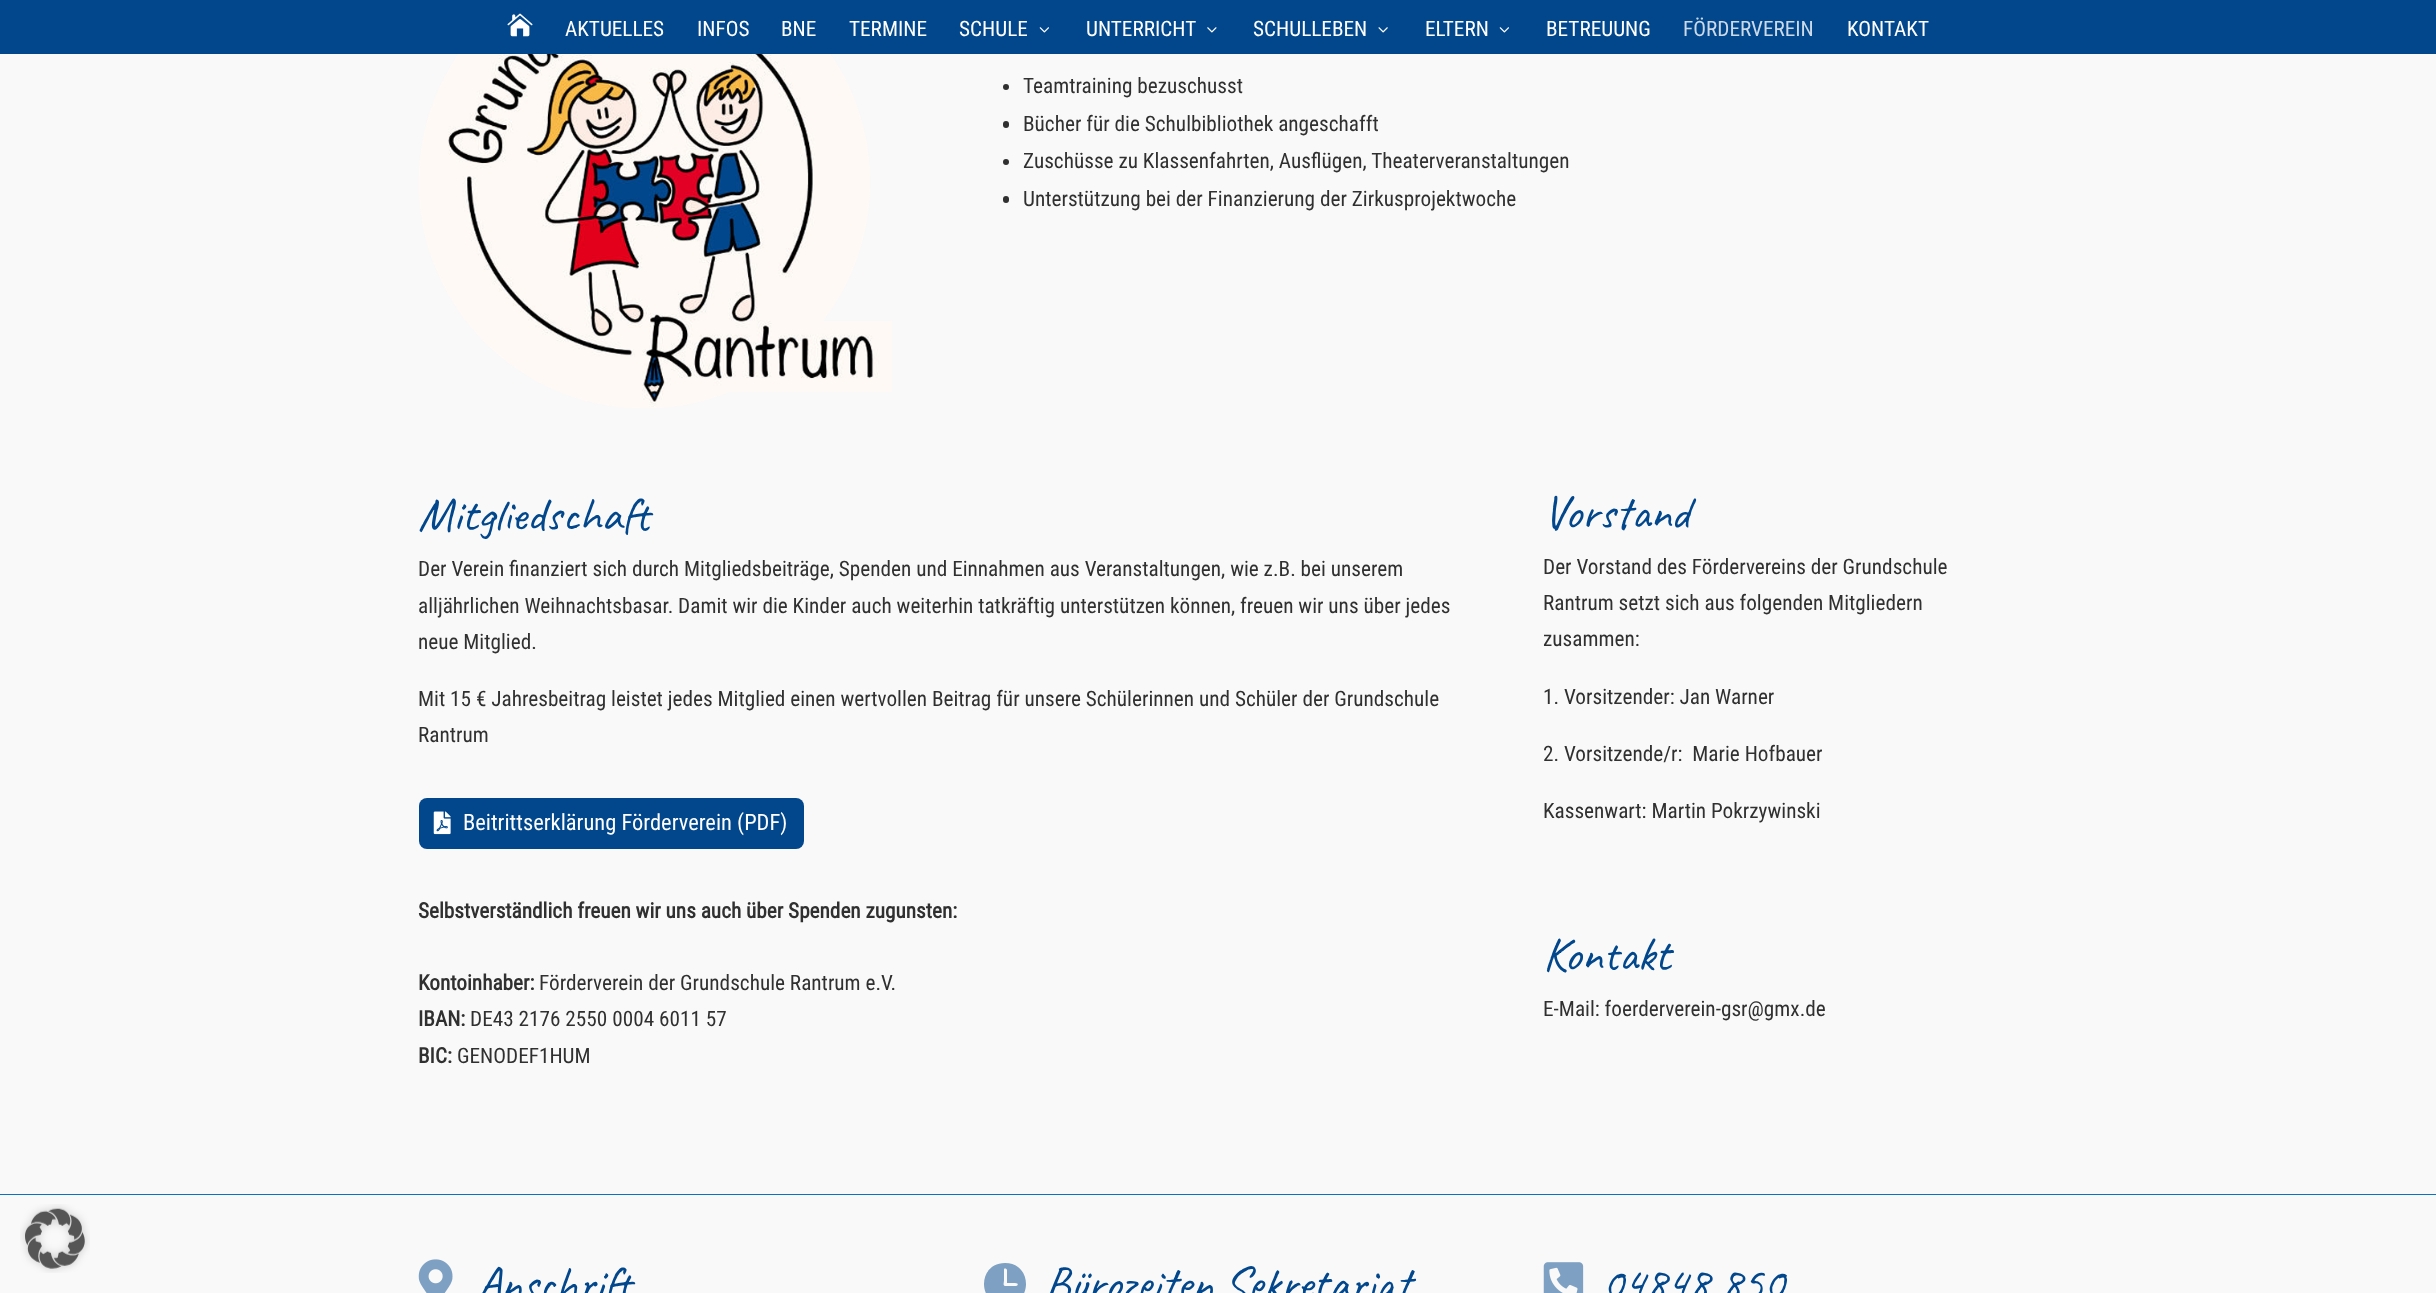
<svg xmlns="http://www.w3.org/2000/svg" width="2436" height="1293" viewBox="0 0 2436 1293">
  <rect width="100%" height="100%" fill="rgb(249,249,249)"/>
  <image x="20" y="1204" width="70" height="69" href="pic1.png"/>
  <rect x="0" y="0" width="2436" height="54" fill="rgb(2,71,140)"/>
  <image x="507" y="13" width="26" height="24" href="pic2.png"/>
  <g font-family="Roboto Condensed" font-size="21.25" fill="rgb(255,255,255)">
    <text x="565" y="36">AKTUELLES</text>
    <text x="697" y="36">INFOS</text>
    <text x="781" y="36">BNE</text>
    <text x="849" y="36">TERMINE</text>
    <text x="959" y="36">SCHULE</text>
  </g>
  <image x="1039" y="27" width="10" height="6" href="pic3.png"/>
  <text x="1086" y="36" font-family="Roboto Condensed" font-size="21.25" fill="rgb(255,255,255)">UNTERRICHT</text>
  <image x="1207" y="27" width="10" height="6" href="pic4.png"/>
  <text x="1253" y="36" font-family="Roboto Condensed" font-size="21.25" fill="rgb(255,255,255)">SCHULLEBEN</text>
  <image x="1378" y="27" width="10" height="6" href="pic5.png"/>
  <text x="1425" y="36" font-family="Roboto Condensed" font-size="21.25" fill="rgb(255,255,255)">ELTERN</text>
  <image x="1499" y="27" width="10" height="6" href="pic3.png"/>
  <text x="1546" y="36" font-family="Roboto Condensed" font-size="21.25" fill="rgb(255,255,255)">BETREUUNG</text>
  <text x="1683" y="36" font-family="Roboto Condensed" font-size="21.25" fill="rgb(204,218,232)">FÖRDERVEREIN</text>
  <text x="1847" y="36" font-family="Roboto Condensed" font-size="21.25" fill="rgb(255,255,255)">KONTAKT</text>
  <image x="419" y="54" width="473" height="354" href="pic6.png"/>
  <circle cx="1006" cy="87" r="3" fill="rgb(48,48,48)"/>
  <text x="1023" y="93" font-family="Roboto Condensed" font-size="21.25" fill="rgb(48,48,48)">Teamtraining bezuschusst</text>
  <rect x="1003" y="121" width="6" height="7" rx="3" fill="rgb(48,48,48)"/>
  <text x="1023" y="131" font-family="Roboto Condensed" font-size="21.25" fill="rgb(48,48,48)">Bücher für die Schulbibliothek angeschafft</text>
  <circle cx="1006" cy="162" r="3" fill="rgb(48,48,48)"/>
  <text x="1023" y="168" font-family="Roboto Condensed" font-size="21.25" fill="rgb(48,48,48)">Zuschüsse zu Klassenfahrten, Ausflügen, Theaterveranstaltungen</text>
  <rect x="1003" y="196" width="6" height="7" rx="3" fill="rgb(48,48,48)"/>
  <text x="1023" y="206" font-family="Roboto Condensed" font-size="21.25" fill="rgb(48,48,48)">Unterstützung bei der Finanzierung der Zirkusprojektwoche</text>
  <text x="418" y="530" font-family="Caveat" font-size="47.5" fill="rgb(2,71,140)">Mitgliedschaft</text>
  <g font-family="Roboto Condensed" font-size="21.25" fill="rgb(48,48,48)">
    <text>
      <tspan x="418" y="576">Der Verein finanziert sich durch Mitgliedsbeiträge, Spenden und Einnahmen aus Veranstaltungen, wie z.B. bei unserem</tspan>
      <tspan x="418" y="613">alljährlichen Weihnachtsbasar. Damit wir die Kinder auch weiterhin tatkräftig unterstützen können, freuen wir uns über jedes</tspan>
      <tspan x="418" y="649">neue Mitglied.</tspan>
    </text>
    <text>
      <tspan x="418" y="706">Mit 15 € Jahresbeitrag leistet jedes Mitglied einen wertvollen Beitrag für unsere Schülerinnen und Schüler der Grundschule</tspan>
      <tspan x="418" y="742">Rantrum</tspan>
    </text>
  </g>
  <rect x="419" y="798" width="385" height="51" rx="8" fill="rgb(2,71,140)"/>
  <image x="433" y="811" width="18" height="24" href="pic7.png"/>
  <text x="463" y="830" font-family="Roboto Condensed" font-size="22.5" fill="rgb(255,255,255)">Beitrittserklärung Förderverein (PDF)</text>
  <g font-family="Roboto Condensed" font-size="21.25" font-weight="bold" fill="rgb(48,48,48)">
    <text x="418" y="918">Selbstverständlich freuen wir uns auch über Spenden zugunsten:</text>
    <text x="418" y="990">Kontoinhaber:</text>
  </g>
  <text x="539" y="990" font-family="Roboto Condensed" font-size="21.25" fill="rgb(48,48,48)">Förderverein der Grundschule Rantrum e.V.</text>
  <text x="418" y="1026" font-family="Roboto Condensed" font-size="21.25" font-weight="bold" fill="rgb(48,48,48)">IBAN:</text>
  <text x="470" y="1026" font-family="Roboto Condensed" font-size="21.25" fill="rgb(48,48,48)">DE43 2176 2550 0004 6011 57</text>
  <text x="418" y="1063" font-family="Roboto Condensed" font-size="21.25" font-weight="bold" fill="rgb(48,48,48)">BIC:</text>
  <text x="457" y="1063" font-family="Roboto Condensed" font-size="21.25" fill="rgb(48,48,48)">GENODEF1HUM</text>
  <text x="1543" y="528" font-family="Caveat" font-size="47.5" fill="rgb(2,71,140)">Vorstand</text>
  <g font-family="Roboto Condensed" font-size="21.25" fill="rgb(48,48,48)">
    <text>
      <tspan x="1543" y="574">Der Vorstand des Fördervereins der Grundschule</tspan>
      <tspan x="1543" y="610">Rantrum setzt sich aus folgenden Mitgliedern</tspan>
      <tspan x="1543" y="646">zusammen:</tspan>
    </text>
    <text x="1543" y="704">1. Vorsitzender: Jan Warner</text>
    <text x="1543" y="761" xml:space="preserve">2. Vorsitzende/r:  Marie Hofbauer</text>
    <text x="1543" y="818">Kassenwart: Martin Pokrzywinski</text>
  </g>
  <text x="1543" y="970" font-family="Caveat" font-size="47.5" fill="rgb(2,71,140)">Kontakt</text>
  <text x="1543" y="1016" font-family="Roboto Condensed" font-size="21.25" fill="rgb(48,48,48)">E-Mail: foerderverein-gsr@gmx.de</text>
  <rect x="0" y="1194" width="2436" height="1" fill="rgb(12,113,195)"/>
  <image x="418" y="1259" width="35" height="34" href="pic8.png"/>
  <text x="477" y="1299" font-family="Caveat" font-size="47.5" fill="rgb(2,71,140)">Anschrift</text>
  <path d="M1005 1263C977 1263 977 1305 1005 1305C1033 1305 1033 1263 1005 1263ZM1016 1286H1007C1002 1286 1004 1284 1004 1280V1269C1005 1268 1007 1269 1007 1270V1283H1015C1019 1283 1018 1286 1016 1286Z" fill="rgb(126,160,194)"/>
  <text x="1045" y="1299" font-family="Caveat" font-size="47.5" fill="rgb(2,71,140)">Bürozeiten Sekretariat</text>
  <image x="1543" y="1262" width="41" height="31" href="pic9.png"/>
  <text x="1602" y="1299" font-family="Caveat" font-size="47.5" fill="rgb(2,71,140)">04848 850</text>
</svg>
